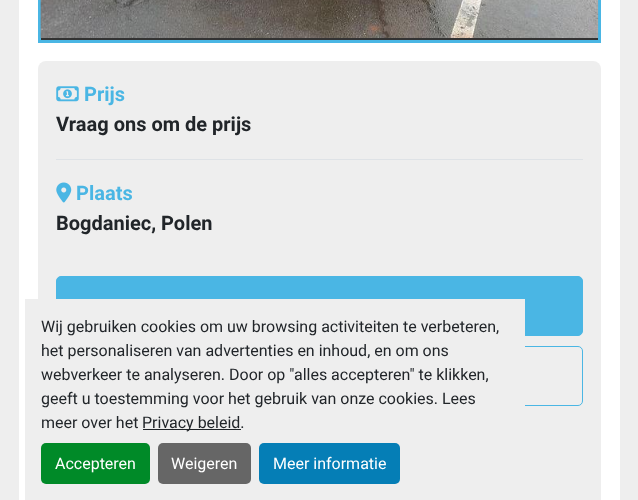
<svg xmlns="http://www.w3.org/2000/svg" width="638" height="500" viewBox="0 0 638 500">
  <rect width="100%" height="100%" fill="rgb(238,238,238)"/>
  <rect x="19" y="0" width="601" height="500" fill="rgb(255,255,255)"/>
  <rect x="41" y="38" width="557" height="2" fill="rgb(51,51,51)"/>
  <rect x="39.5" y="-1.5" width="560" height="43" fill="none" stroke="rgb(74,182,228)" stroke-width="3"/>
  <image x="40" y="0" width="559" height="38" href="pic1.png"/>
  <rect x="38" y="61" width="563" height="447" rx="8" fill="rgb(238,238,238)"/>
  <rect x="56" y="159" width="527" height="1" fill="rgb(222,226,230)"/>
  <image x="56" y="86" width="23" height="16" href="pic2.png"/>
  <text x="84" y="101" font-family="Roboto" font-size="20" font-weight="bold" fill="rgb(74,182,228)">Prijs</text>
  <text x="56" y="131" font-family="Roboto" font-size="20" font-weight="bold" fill="rgb(33,37,41)">Vraag ons om de prijs</text>
  <image x="56" y="182" width="16" height="21" href="pic3.png"/>
  <text x="76" y="200" font-family="Roboto" font-size="20" font-weight="bold" fill="rgb(74,182,228)">Plaats</text>
  <text x="56" y="230" font-family="Roboto" font-size="20" font-weight="bold" fill="rgb(33,37,41)">Bogdaniec, Polen</text>
  <rect x="56.5" y="276.5" width="526" height="59" rx="4.5" fill="rgb(74,182,228)" stroke="rgb(74,182,228)"/>
  <rect x="56.5" y="346.5" width="526" height="59" rx="4.5" fill="none" stroke="rgb(74,182,228)"/>
  <rect x="25" y="299" width="500" height="201" fill="rgb(238,238,238)"/>
  <g font-family="Roboto" font-size="16" fill="rgb(33,37,41)">
    <text>
      <tspan x="41" y="332">Wij gebruiken cookies om uw browsing activiteiten te verbeteren,</tspan>
      <tspan x="41" y="356">het personaliseren van advertenties en inhoud, en om ons</tspan>
      <tspan x="41" y="380">webverkeer te analyseren. Door op "alles accepteren" te klikken,</tspan>
      <tspan x="41" y="404">geeft u toestemming voor het gebruik van onze cookies. Lees</tspan>
      <tspan x="41" y="428">meer over het</tspan>
    </text>
  </g>
  <rect x="143" y="429" width="98" height="1" fill="rgb(33,37,41)"/>
  <text x="142" y="428" font-family="Roboto" font-size="16" fill="rgb(33,37,41)">Privacy beleid.</text>
  <rect x="41" y="443" width="109" height="41" rx="5" fill="rgb(0,138,40)"/>
  <text x="55" y="469" font-family="Roboto" font-size="16" fill="rgb(255,255,255)">Accepteren</text>
  <rect x="158" y="443" width="93" height="41" rx="5" fill="rgb(102,102,102)"/>
  <text x="171" y="469" font-family="Roboto" font-size="16" fill="rgb(255,255,255)">Weigeren</text>
  <rect x="259" y="443" width="141" height="41" rx="5" fill="rgb(5,126,182)"/>
  <text x="273" y="469" font-family="Roboto" font-size="16" fill="rgb(255,255,255)">Meer informatie</text>
</svg>
